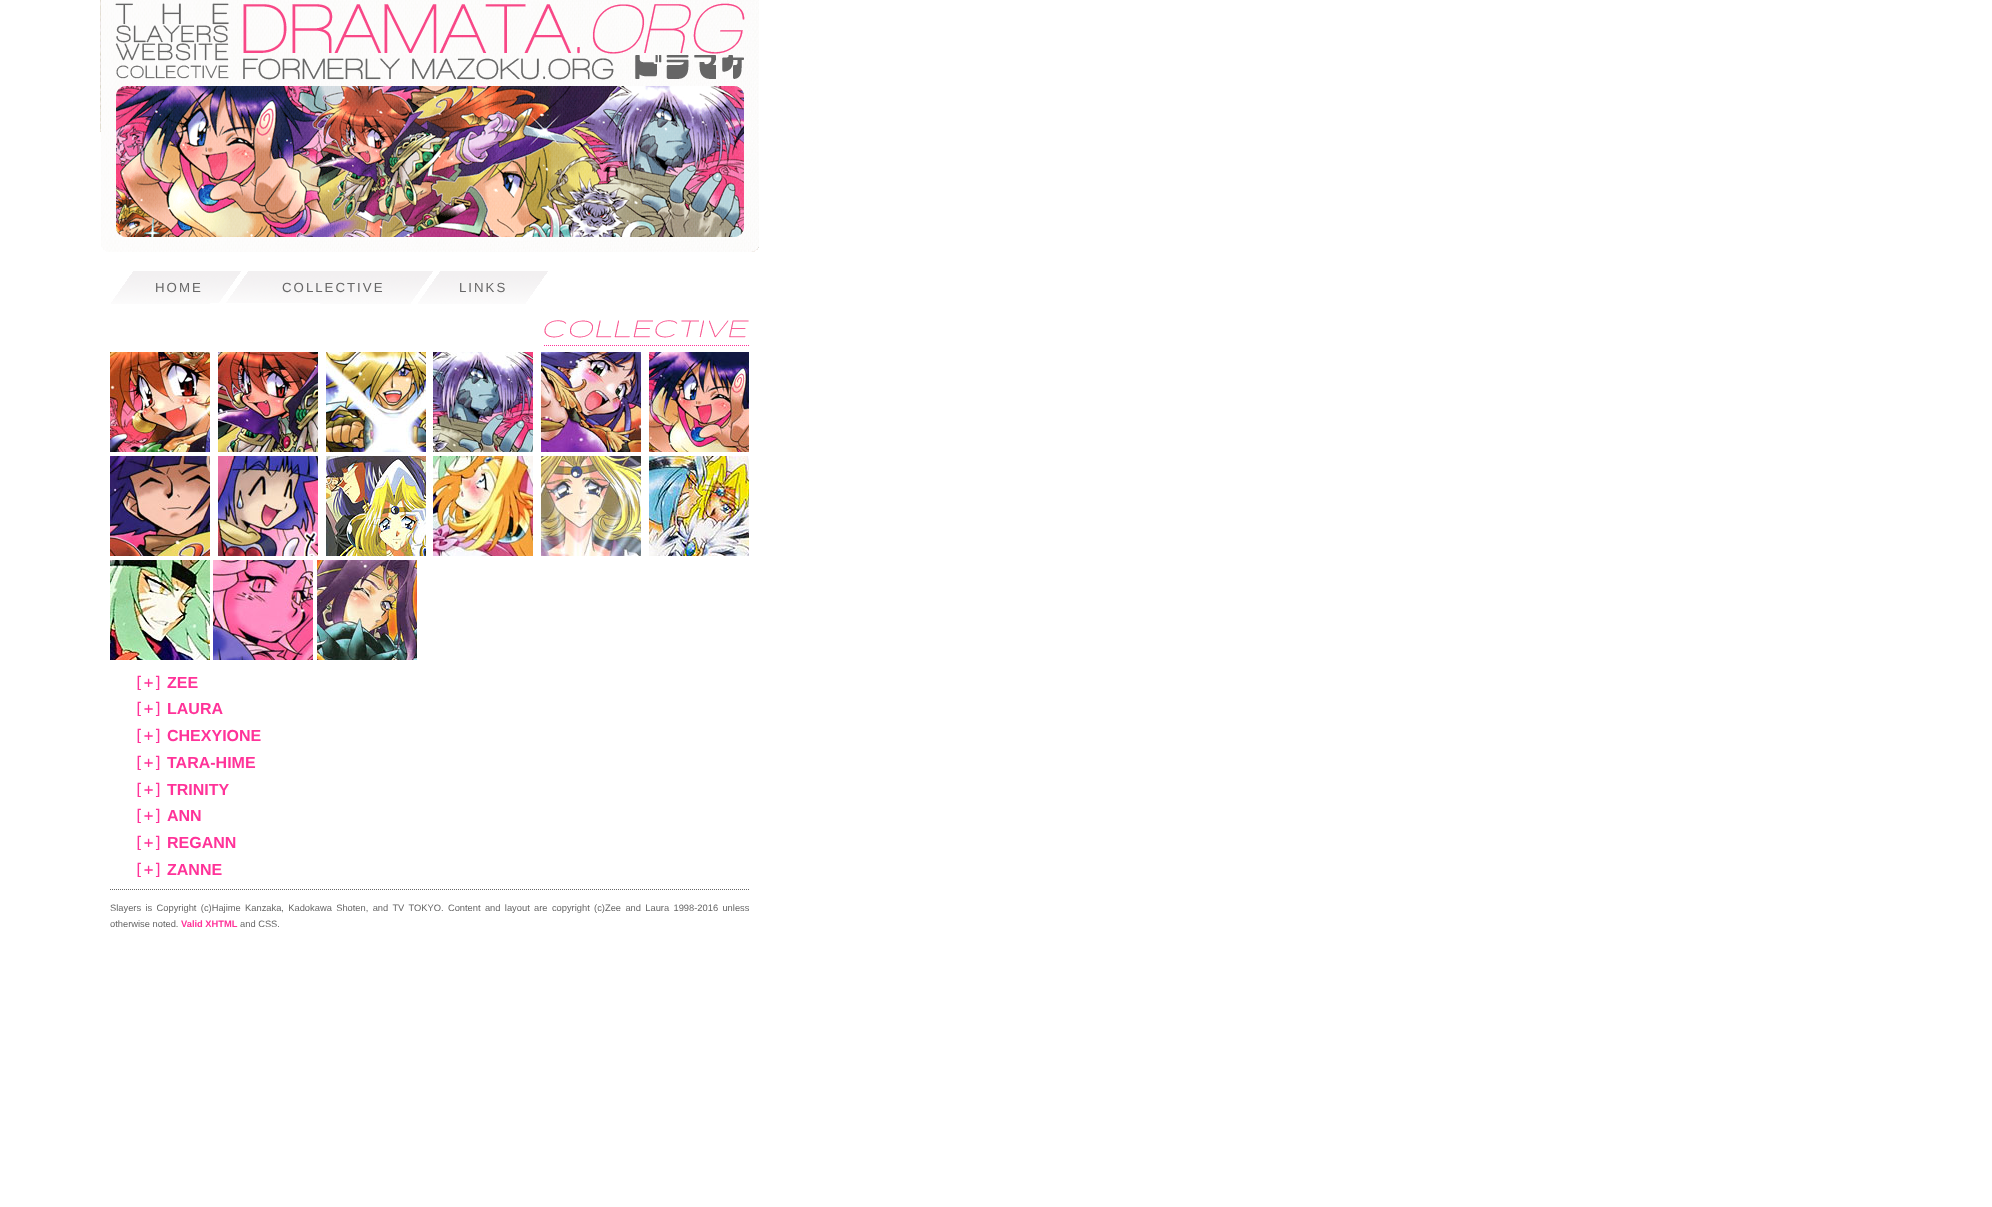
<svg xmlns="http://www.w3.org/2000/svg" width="1992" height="1207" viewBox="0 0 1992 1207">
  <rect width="100%" height="100%" fill="rgb(255,255,255)"/>
  <image x="100" y="0" width="110" height="50" href="pic1.png"/>
  <image x="210" y="0" width="110" height="50" href="pic2.png"/>
  <image x="320" y="0" width="110" height="50" href="pic3.png"/>
  <image x="430" y="0" width="109" height="50" href="pic4.png"/>
  <image x="539" y="0" width="110" height="50" href="pic5.png"/>
  <image x="649" y="0" width="110" height="50" href="pic6.png"/>
  <image x="100" y="50" width="110" height="52" href="pic7.png"/>
  <image x="210" y="50" width="110" height="52" href="pic8.png"/>
  <image x="320" y="50" width="110" height="52" href="pic9.png"/>
  <image x="430" y="50" width="109" height="52" href="pic10.png"/>
  <image x="539" y="50" width="110" height="52" href="pic11.png"/>
  <image x="649" y="50" width="110" height="52" href="pic12.png"/>
  <image x="100" y="102" width="110" height="52" href="pic13.png"/>
  <image x="210" y="102" width="110" height="52" href="pic14.png"/>
  <image x="320" y="102" width="110" height="52" href="pic15.png"/>
  <image x="430" y="102" width="109" height="52" href="pic16.png"/>
  <image x="539" y="102" width="110" height="52" href="pic17.png"/>
  <image x="649" y="102" width="110" height="52" href="pic18.png"/>
  <image x="101" y="154" width="109" height="52" href="pic19.png"/>
  <image x="210" y="154" width="110" height="52" href="pic20.png"/>
  <image x="320" y="154" width="110" height="52" href="pic21.png"/>
  <image x="430" y="154" width="109" height="52" href="pic22.png"/>
  <image x="539" y="154" width="110" height="52" href="pic23.png"/>
  <image x="649" y="154" width="110" height="52" href="pic24.png"/>
  <image x="101" y="206" width="109" height="46" href="pic25.png"/>
  <image x="210" y="206" width="110" height="46" href="pic26.png"/>
  <image x="320" y="206" width="110" height="46" href="pic27.png"/>
  <image x="430" y="206" width="109" height="46" href="pic28.png"/>
  <image x="539" y="206" width="110" height="46" href="pic29.png"/>
  <image x="649" y="206" width="110" height="46" href="pic30.png"/>
  <image x="111" y="271" width="99" height="33" href="pic31.png"/>
  <image x="210" y="271" width="110" height="32" href="pic32.png"/>
  <image x="320" y="271" width="110" height="33" href="pic33.png"/>
  <image x="430" y="271" width="109" height="33" href="pic34.png"/>
  <image x="539" y="271" width="9" height="13" href="pic35.png"/>
  <g font-family="Liberation Sans" font-size="13.25" letter-spacing="2" fill="rgb(102,102,102)">
    <text x="155" y="292">HOME</text>
    <text x="282" y="292">COLLECTIVE</text>
    <text x="459" y="292">LINKS</text>
  </g>
  <image x="544" y="320" width="205" height="18" href="pic36.png"/>
  <path d="M544 345.5H749" fill="none" stroke="rgb(255,51,153)" stroke-dasharray="1 1"/>
  <image x="110" y="352" width="100" height="100" href="pic37.png"/>
  <image x="218" y="352" width="100" height="100" href="pic38.png"/>
  <image x="326" y="352" width="100" height="100" href="pic39.png"/>
  <image x="433" y="352" width="100" height="100" href="pic40.png"/>
  <image x="541" y="352" width="100" height="100" href="pic41.png"/>
  <image x="649" y="352" width="100" height="100" href="pic42.png"/>
  <image x="110" y="456" width="100" height="100" href="pic43.png"/>
  <image x="218" y="456" width="100" height="100" href="pic44.png"/>
  <image x="326" y="456" width="100" height="100" href="pic45.png"/>
  <image x="433" y="456" width="100" height="100" href="pic46.png"/>
  <image x="541" y="456" width="100" height="100" href="pic47.png"/>
  <image x="649" y="456" width="100" height="100" href="pic48.png"/>
  <image x="110" y="560" width="100" height="100" href="pic49.png"/>
  <image x="213" y="560" width="100" height="100" href="pic50.png"/>
  <image x="317" y="560" width="100" height="100" href="pic51.png"/>
  <text x="134" y="688" font-family="DejaVu Sans Mono" font-size="16" fill="rgb(255,51,153)">[+]</text>
  <text x="167" y="688" font-family="Liberation Sans" font-size="16" font-weight="bold" fill="rgb(255,51,153)">ZEE</text>
  <text x="134" y="714" font-family="DejaVu Sans Mono" font-size="16" fill="rgb(255,51,153)">[+]</text>
  <text x="167" y="714" font-family="Liberation Sans" font-size="16" font-weight="bold" fill="rgb(255,51,153)">LAURA</text>
  <text x="134" y="741" font-family="DejaVu Sans Mono" font-size="16" fill="rgb(255,51,153)">[+]</text>
  <text x="167" y="741" font-family="Liberation Sans" font-size="16" font-weight="bold" fill="rgb(255,51,153)">CHEXYIONE</text>
  <text x="134" y="768" font-family="DejaVu Sans Mono" font-size="16" fill="rgb(255,51,153)">[+]</text>
  <text x="167" y="768" font-family="Liberation Sans" font-size="16" font-weight="bold" fill="rgb(255,51,153)">TARA-HIME</text>
  <text x="134" y="795" font-family="DejaVu Sans Mono" font-size="16" fill="rgb(255,51,153)">[+]</text>
  <text x="167" y="795" font-family="Liberation Sans" font-size="16" font-weight="bold" fill="rgb(255,51,153)">TRINITY</text>
  <text x="134" y="821" font-family="DejaVu Sans Mono" font-size="16" fill="rgb(255,51,153)">[+]</text>
  <text x="167" y="821" font-family="Liberation Sans" font-size="16" font-weight="bold" fill="rgb(255,51,153)">ANN</text>
  <text x="134" y="848" font-family="DejaVu Sans Mono" font-size="16" fill="rgb(255,51,153)">[+]</text>
  <text x="167" y="848" font-family="Liberation Sans" font-size="16" font-weight="bold" fill="rgb(255,51,153)">REGANN</text>
  <text x="134" y="875" font-family="DejaVu Sans Mono" font-size="16" fill="rgb(255,51,153)">[+]</text>
  <text x="167" y="875" font-family="Liberation Sans" font-size="16" font-weight="bold" fill="rgb(255,51,153)">ZANNE</text>
  <path d="M110 889.5H749" fill="none" stroke="rgb(102,102,102)" stroke-dasharray="1 1"/>
  <g font-family="Liberation Sans" font-size="9.33" fill="rgb(102,102,102)">
    <text>
      <tspan x="110" y="911" word-spacing="1.75">Slayers is Copyright (c)Hajime Kanzaka, Kadokawa Shoten, and TV TOKYO. Content and layout are copyright (c)Zee and Laura 1998-2016 unless</tspan>
      <tspan x="110" y="927">otherwise noted.</tspan>
    </text>
  </g>
  <text x="181" y="927" font-family="Liberation Sans" font-size="9.33" font-weight="bold" fill="rgb(255,51,153)">Valid XHTML</text>
  <text x="240" y="927" font-family="Liberation Sans" font-size="9.33" fill="rgb(102,102,102)">and CSS.</text>
</svg>
